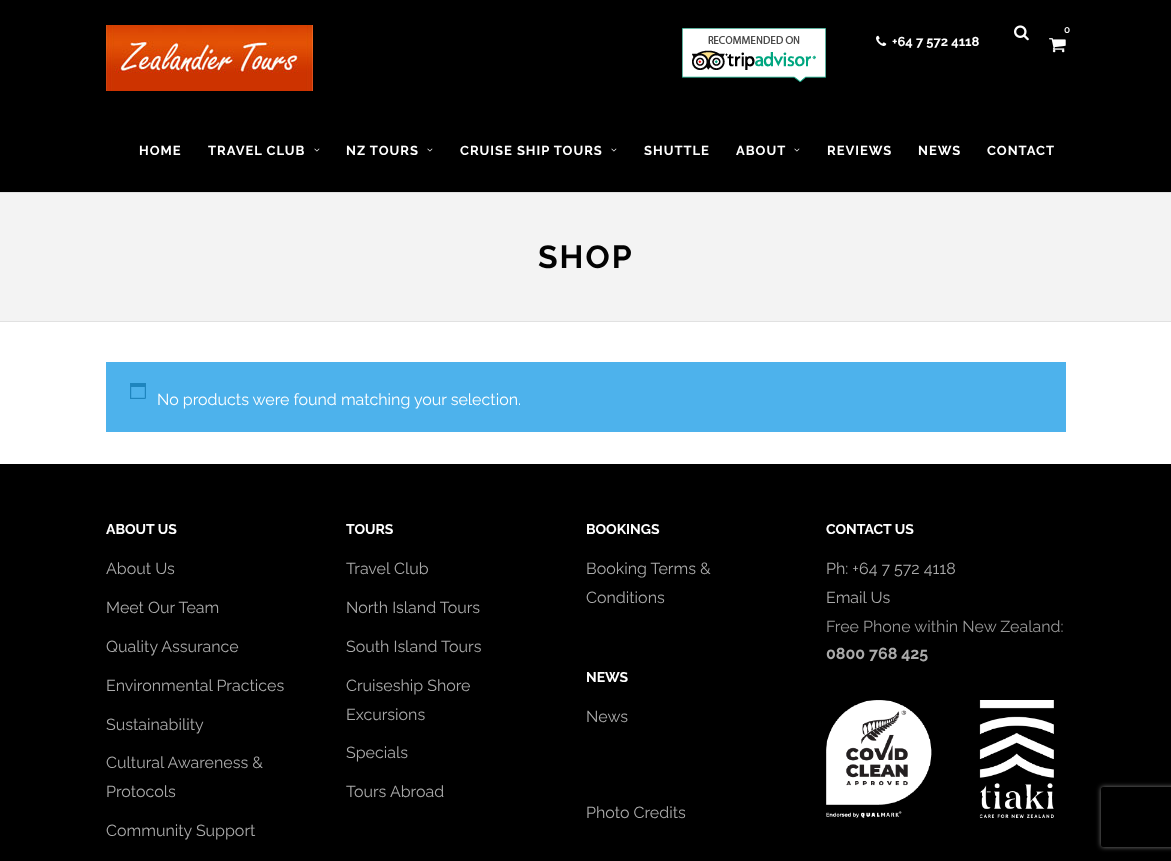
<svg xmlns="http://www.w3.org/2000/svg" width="1171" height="861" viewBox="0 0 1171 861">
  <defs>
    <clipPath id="clip1"><path d="M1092 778H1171V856H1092ZM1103 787H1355C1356 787 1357 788 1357 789V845C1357 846 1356 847 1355 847H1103C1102 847 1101 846 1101 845V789C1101 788 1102 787 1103 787Z" clip-rule="evenodd"/></clipPath>
  </defs>
  <rect width="100%" height="100%" fill="rgb(255,255,255)"/>
  <rect x="0" y="0" width="1171" height="192" fill="rgb(0,0,0)"/>
  <rect x="0" y="192" width="1171" height="1" fill="rgb(225,225,225)"/>
  <image x="106" y="25" width="207" height="66" href="pic1.png"/>
  <image x="682" y="28" width="144" height="54" href="pic2.png"/>
  <image x="876" y="35" width="11" height="11" href="pic3.png"/>
  <text x="892" y="46" font-family="Raleway" font-size="13" font-weight="bold" fill="rgb(255,255,255)">+64 7 572 4118</text>
  <image x="1014" y="25" width="15" height="16" href="pic4.png"/>
  <text x="1064" y="33" font-family="Raleway" font-size="10" font-weight="600" fill="rgb(255,255,255)">0</text>
  <image x="1049" y="38" width="17" height="15" href="pic5.png"/>
  <g font-family="Raleway" font-size="13" font-weight="bold" letter-spacing="1" fill="rgb(255,255,255)">
    <text x="139" y="155">HOME</text>
    <text x="208" y="155">TRAVEL CLUB</text>
  </g>
  <image x="314" y="148" width="6" height="4" href="pic6.png"/>
  <text x="346" y="155" font-family="Raleway" font-size="13" font-weight="bold" letter-spacing="1" fill="rgb(255,255,255)">NZ TOURS</text>
  <image x="427" y="148" width="6" height="4" href="pic6.png"/>
  <text x="460" y="155" font-family="Raleway" font-size="13" font-weight="bold" letter-spacing="1" fill="rgb(255,255,255)">CRUISE SHIP TOURS</text>
  <image x="611" y="148" width="6" height="4" href="pic6.png"/>
  <g font-family="Raleway" font-size="13" font-weight="bold" letter-spacing="1" fill="rgb(255,255,255)">
    <text x="644" y="155">SHUTTLE</text>
    <text x="736" y="155">ABOUT</text>
  </g>
  <image x="794" y="148" width="6" height="4" href="pic6.png"/>
  <g font-family="Raleway" font-size="13" font-weight="bold" letter-spacing="1" fill="rgb(255,255,255)">
    <text x="827" y="155">REVIEWS</text>
    <text x="918" y="155">NEWS</text>
    <text x="987" y="155">CONTACT</text>
  </g>
  <rect x="0" y="193" width="1171" height="128" fill="rgb(243,243,243)"/>
  <rect x="0" y="321" width="1171" height="1" fill="rgb(225,225,225)"/>
  <text x="538" y="268" font-family="Raleway" font-size="32" font-weight="bold" letter-spacing="2" fill="rgb(2,2,2)">SHOP</text>
  <rect x="106" y="362" width="960" height="70" fill="rgb(77,178,236)"/>
  <image x="130" y="383" width="16" height="16" href="pic7.png"/>
  <text x="157" y="405" font-family="Raleway" font-size="16" fill="rgb(255,255,255)">No products were found matching your selection.</text>
  <rect x="0" y="464" width="1171" height="397" fill="rgb(0,0,0)"/>
  <text x="106" y="534" font-family="Raleway" font-size="14" font-weight="bold" fill="rgb(255,255,255)">ABOUT US</text>
  <g font-family="Raleway" font-size="16" fill="rgb(170,170,170)">
    <text x="106" y="574">About Us</text>
    <text x="106" y="613">Meet Our Team</text>
    <text x="106" y="652">Quality Assurance</text>
    <text x="106" y="691">Environmental Practices</text>
    <text x="106" y="730">Sustainability</text>
    <text>
      <tspan x="106" y="768">Cultural Awareness &amp;</tspan>
      <tspan x="106" y="797">Protocols</tspan>
    </text>
    <text x="106" y="836">Community Support</text>
  </g>
  <text x="346" y="534" font-family="Raleway" font-size="14" font-weight="bold" fill="rgb(255,255,255)">TOURS</text>
  <g font-family="Raleway" font-size="16" fill="rgb(170,170,170)">
    <text x="346" y="574">Travel Club</text>
    <text x="346" y="613">North Island Tours</text>
    <text x="346" y="652">South Island Tours</text>
    <text>
      <tspan x="346" y="691">Cruiseship Shore</tspan>
      <tspan x="346" y="720">Excursions</tspan>
    </text>
    <text x="346" y="758">Specials</text>
    <text x="346" y="797">Tours Abroad</text>
  </g>
  <text x="586" y="534" font-family="Raleway" font-size="14" font-weight="bold" fill="rgb(255,255,255)">BOOKINGS</text>
  <g font-family="Raleway" font-size="16" fill="rgb(170,170,170)">
    <text>
      <tspan x="586" y="574">Booking Terms &amp;</tspan>
      <tspan x="586" y="603">Conditions</tspan>
    </text>
  </g>
  <text x="586" y="682" font-family="Raleway" font-size="14" font-weight="bold" fill="rgb(255,255,255)">NEWS</text>
  <g font-family="Raleway" font-size="16" fill="rgb(170,170,170)">
    <text x="586" y="722">News</text>
    <text x="586" y="818">Photo Credits</text>
  </g>
  <text x="826" y="534" font-family="Raleway" font-size="14" font-weight="bold" fill="rgb(255,255,255)">CONTACT US</text>
  <g font-family="Raleway" font-size="16" fill="rgb(170,170,170)">
    <text>
      <tspan x="826" y="574">Ph: +64 7 572 4118</tspan>
      <tspan x="826" y="603">Email Us</tspan>
    </text>
  </g>
  <text x="826" y="632" font-family="Raleway" font-size="16" fill="rgb(153,153,153)">Free Phone within New Zealand:</text>
  <text x="826" y="659" font-family="Raleway" font-size="16" font-weight="bold" fill="rgb(170,170,170)">0800 768 425</text>
  <image x="826" y="700" width="228" height="118" href="pic8.png"/>
  <g clip-path="url(#clip1)">
    <rect x="1101" y="787" width="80" height="60" rx="2" fill="rgb(128,128,128)" filter="blur(2.5px)"/>
  </g>
</svg>
